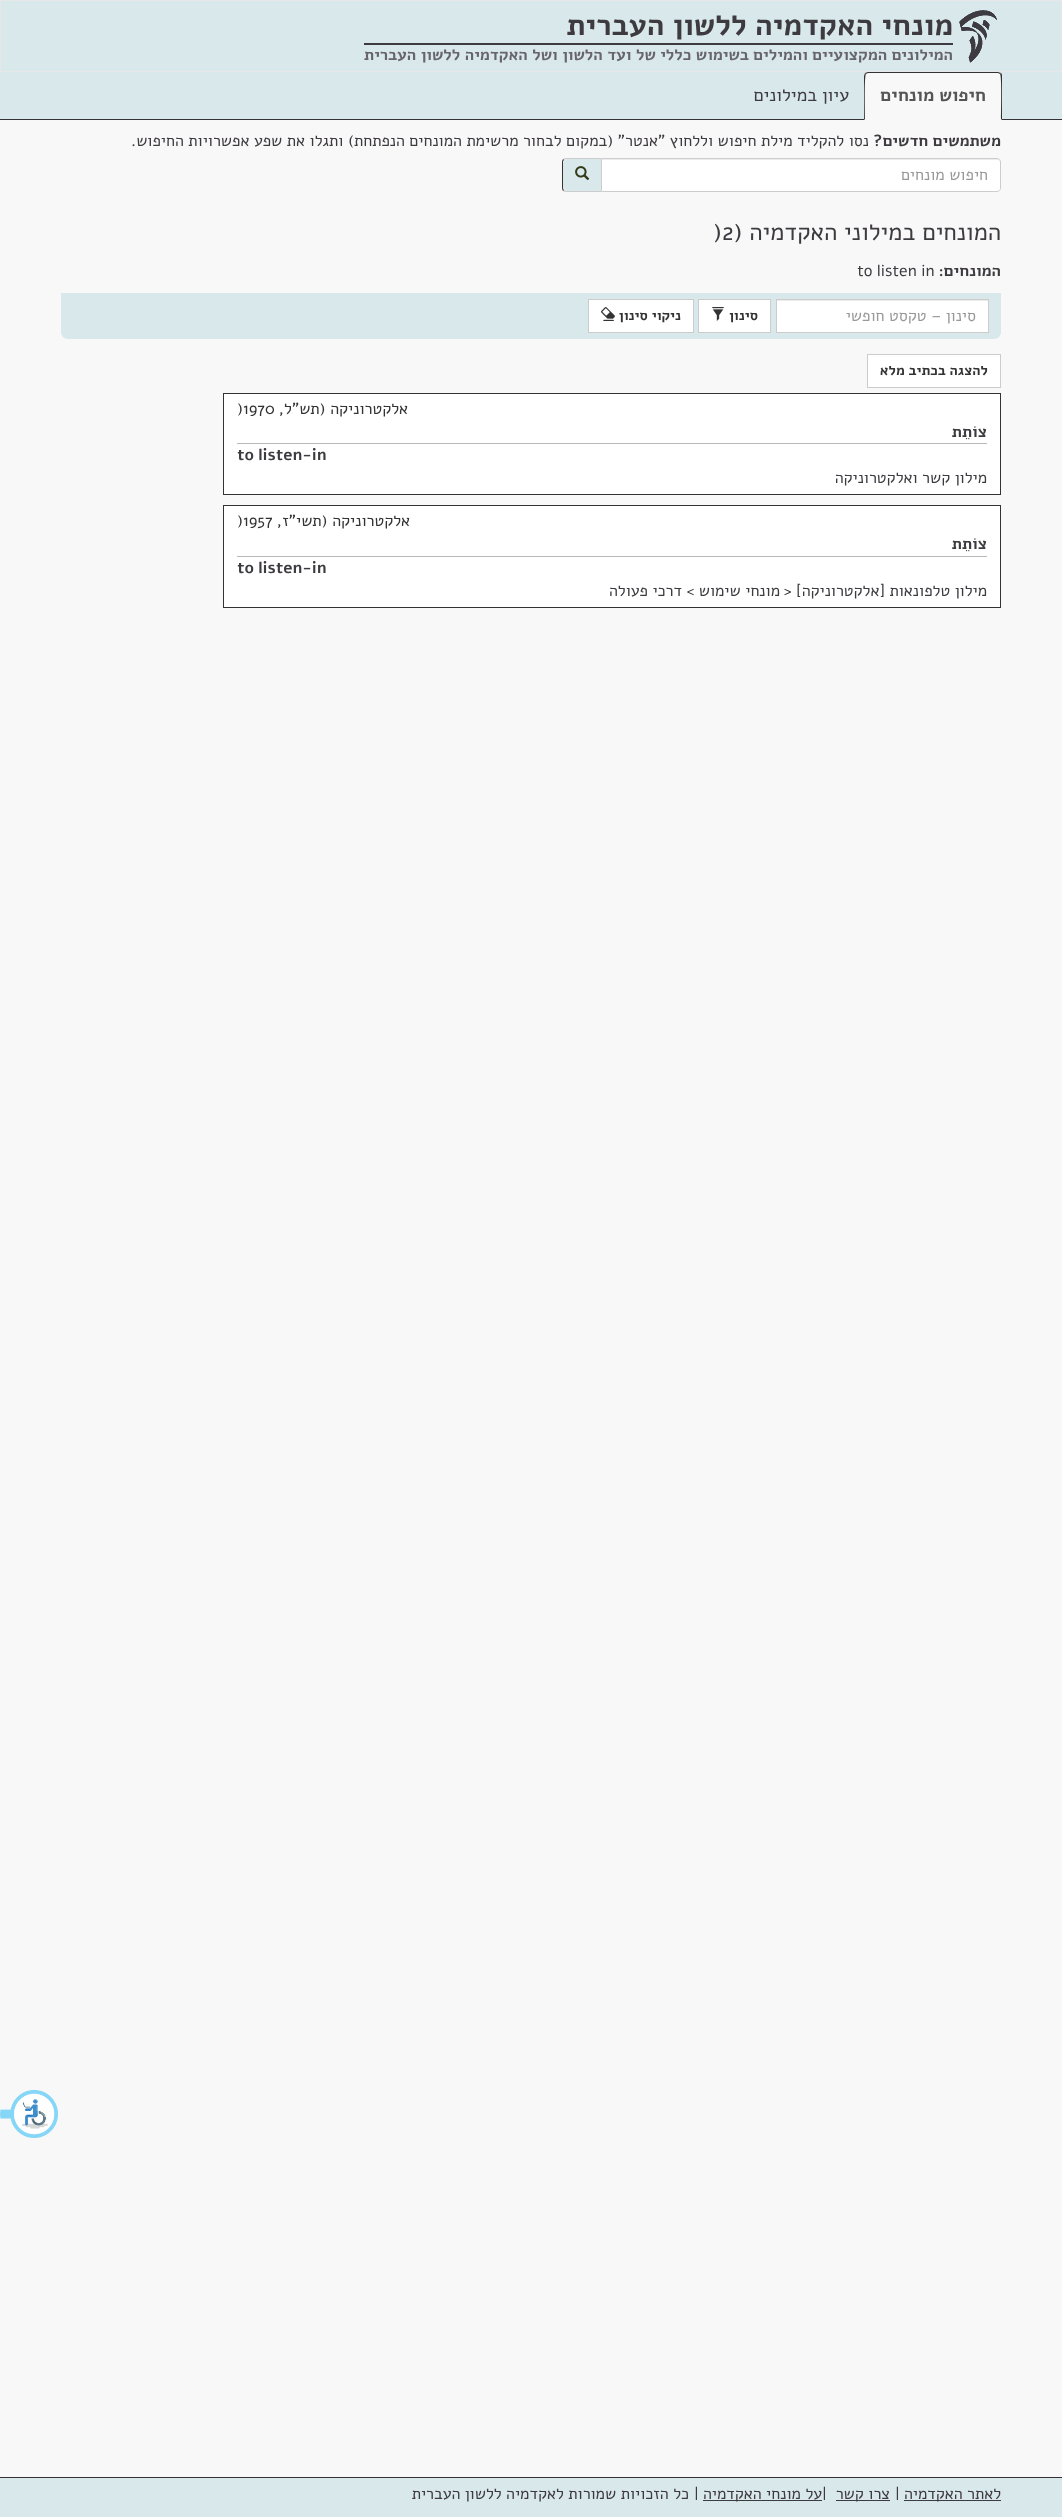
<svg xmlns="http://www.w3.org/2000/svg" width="1062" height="2517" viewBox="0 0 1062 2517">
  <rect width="100%" height="100%" fill="rgb(248,248,248)"/>
  <rect x="0.5" y="0.5" width="1061" height="71" fill="rgb(217,232,235)" stroke="rgb(231,231,231)"/>
  <image x="959" y="10" width="38" height="53" href="pic1.png"/>
  <g font-family="Alef" font-size="30" font-weight="bold" direction="rtl" fill="rgb(62,59,64)">
    <text x="953" y="35">מונחי האקדמיה</text>
    <text x="747" y="35">ללשון העברית</text>
  </g>
  <rect x="364" y="43" width="589" height="2" fill="rgb(62,59,64)"/>
  <text x="953" y="60" font-family="Alef" font-size="16" font-weight="bold" direction="rtl" fill="rgb(103,101,107)">המילונים המקצועיים והמילים בשימוש כללי של ועד הלשון ושל האקדמיה ללשון העברית</text>
  <rect x="0" y="72" width="1062" height="47" fill="rgb(217,232,235)"/>
  <rect x="0" y="119" width="1062" height="1" fill="rgb(51,51,51)"/>
  <path d="M868 72H998C1000 72 1002 74 1002 76V120H864V76C864 74 866 72 868 72Z" fill="rgb(248,248,248)"/>
  <path d="M868 72L865 73L866 74L868 73H998L1000 74L1001 73L998 72Z" fill="rgb(51,51,51)"/>
  <path d="M1002 120V76C1002 75 1002 74 1001 73L1000 74C1002 76 1001 114 1001 119Z" fill="rgb(51,51,51)"/>
  <path d="M864 120L865 119C865 114 864 76 866 74L865 73L864 76Z" fill="rgb(51,51,51)"/>
  <text x="986" y="101" font-family="Alef" font-size="18" font-weight="bold" direction="rtl" fill="rgb(85,85,85)">חיפוש מונחים</text>
  <text x="849" y="101" font-family="Alef" font-size="18" direction="rtl" fill="rgb(62,59,64)">עיון במילונים</text>
  <text x="1001" y="146" font-family="Alef" font-size="16" font-weight="bold" direction="rtl" fill="rgb(62,59,64)">משתמשים חדשים?</text>
  <text x="869" y="146" font-family="Alef" font-size="16" direction="rtl" fill="rgb(62,59,64)">נסו להקליד מילת חיפוש וללחוץ "אנטר" (במקום לבחור מרשימת המונחים הנפתחת) ותגלו את שפע אפשרויות החיפוש.</text>
  <path d="M601 158H997C999 158 1001 160 1001 162V188C1001 190 999 192 997 192H601Z" fill="rgb(255,255,255)"/>
  <path d="M602 160H997C999 160 1000 161 1000 163V162C1000 160 999 159 997 159H602Z" fill="rgb(236,236,236)"/>
  <path d="M601.5 158.5H997C999 158.5 1000.5 160 1000.5 162V188C1000.5 190 999 191.5 997 191.5H601.5Z" fill="none" stroke="rgb(204,204,204)"/>
  <text x="988" y="180" font-family="Alef" font-size="16" direction="rtl" fill="rgb(153,153,153)">חיפוש מונחים</text>
  <path d="M566 158H601V192H566C564 192 562 190 562 188V162C562 160 564 158 566 158Z" fill="rgb(238,238,238)"/>
  <path d="M566 158C565 158 564 158.5 563 159L564 160L565.5 159H601V158ZM601 192V191H565.5L564 190L563 191C564 191.5 565 192 566 192Z" fill="rgb(204,204,204)"/>
  <path d="M562 162V188C562 189 562.5 190 563 191L564 190C563.5 189.5 563 189 563 188V162C563 161 563.5 160.5 564 160L563 159C562.5 160 562 161 562 162Z" fill="rgb(51,51,51)"/>
  <path d="M569 159H601V191H569C565.5 191 563 188.5 563 185V165C563 161.5 565.5 159 569 159Z" fill="rgb(217,232,235)"/>
  <image x="575" y="166" width="15" height="14" href="pic2.png"/>
  <text x="1001" y="240" font-family="Alef" font-size="24" direction="rtl" fill="rgb(62,59,64)">המונחים במילוני האקדמיה (</text>
  <text x="713" y="240" font-family="Alef" font-size="24" fill="rgb(62,59,64)">)2</text>
  <text x="1001" y="276" font-family="Alef" font-size="16" font-weight="bold" direction="rtl" fill="rgb(62,59,64)">המונחים:</text>
  <text x="857" y="276" font-family="Alef" font-size="16" fill="rgb(62,59,64)">to listen in</text>
  <path d="M61 293H1001V332C1001 336 998 339 994 339H68C64 339 61 336 61 332Z" fill="rgb(217,232,235)"/>
  <rect x="777" y="301" width="211" height="31" fill="rgb(255,255,255)"/>
  <rect x="777" y="300" width="211" height="1" fill="rgb(236,236,236)"/>
  <rect x="776.5" y="299.5" width="212" height="33" fill="none" stroke="rgb(204,204,204)"/>
  <text x="976" y="321" font-family="Alef" font-size="16" direction="rtl" fill="rgb(153,153,153)">סינון – טקסט חופשי</text>
  <rect x="698.5" y="299.5" width="72" height="33" fill="rgb(255,255,255)" stroke="rgb(204,204,204)"/>
  <text x="758" y="320" font-family="Alef" font-size="14" font-weight="bold" direction="rtl" fill="rgb(51,51,51)">סינון</text>
  <image x="712" y="307" width="12" height="14" href="pic3.png"/>
  <rect x="588.5" y="299.5" width="105" height="33" fill="rgb(255,255,255)" stroke="rgb(204,204,204)"/>
  <text x="681" y="320" font-family="Alef" font-size="14" font-weight="bold" direction="rtl" fill="rgb(51,51,51)">ניקוי סינון</text>
  <image x="601" y="307" width="14" height="14" href="pic4.png"/>
  <rect x="867.5" y="354.5" width="133" height="33" fill="rgb(255,255,255)" stroke="rgb(204,204,204)"/>
  <text x="988" y="375" font-family="Alef" font-size="14" font-weight="bold" direction="rtl" fill="rgb(51,51,51)">להצגה בכתיב מלא</text>
  <rect x="223.5" y="393.5" width="777" height="101" fill="rgb(255,255,255)" stroke="rgb(51,51,51)"/>
  <text x="408" y="414" font-family="Alef" font-size="16" direction="rtl" fill="rgb(51,51,51)">אלקטרוניקה (תש"ל,</text>
  <text x="237" y="414" font-family="Alef" font-size="16" fill="rgb(51,51,51)">)1970</text>
  <text x="987" y="437" font-family="Alef" font-size="16" font-weight="bold" direction="rtl" fill="rgb(62,59,64)">צוֹתֵת</text>
  <rect x="237" y="443" width="750" height="1" fill="rgb(185,185,185)"/>
  <text x="237" y="460" font-family="Alef" font-size="16" font-weight="bold" fill="rgb(62,59,64)">to listen-in</text>
  <text x="987" y="483" font-family="Alef" font-size="16" direction="rtl" fill="rgb(62,59,64)">מילון קשר ואלקטרוניקה</text>
  <rect x="223.5" y="505.5" width="777" height="102" fill="rgb(255,255,255)" stroke="rgb(51,51,51)"/>
  <text x="410" y="526" font-family="Alef" font-size="16" direction="rtl" fill="rgb(51,51,51)">אלקטרוניקה (תשי"ז,</text>
  <text x="237" y="526" font-family="Alef" font-size="16" fill="rgb(51,51,51)">)1957</text>
  <text x="987" y="549" font-family="Alef" font-size="16" font-weight="bold" direction="rtl" fill="rgb(62,59,64)">צוֹתֵת</text>
  <rect x="237" y="556" width="750" height="1" fill="rgb(185,185,185)"/>
  <text x="237" y="573" font-family="Alef" font-size="16" font-weight="bold" fill="rgb(62,59,64)">to listen-in</text>
  <text x="987" y="596" font-family="Alef" font-size="16" direction="rtl" fill="rgb(62,59,64)">מילון טלפונאות [אלקטרוניקה]</text>
  <text x="784" y="596" font-family="Alef" font-size="16" fill="rgb(51,51,51)">&gt;</text>
  <g font-family="Alef" font-size="16" direction="rtl" fill="rgb(62,59,64)">
    <text x="780" y="596">מונחי שימוש &gt;</text>
    <text x="682" y="596">דרכי פעולה</text>
  </g>
  <rect x="0" y="2478" width="1062" height="39" fill="rgb(217,232,235)"/>
  <rect x="0" y="2477" width="1062" height="1" fill="rgb(51,51,51)"/>
  <rect x="904" y="2500" width="97" height="1" fill="rgb(62,59,64)"/>
  <text x="1001" y="2499" font-family="Alef" font-size="16" direction="rtl" fill="rgb(62,59,64)">לאתר האקדמיה</text>
  <text x="895" y="2499" font-family="Alef" font-size="16" fill="rgb(62,59,64)">|</text>
  <rect x="836" y="2500" width="54" height="1" fill="rgb(62,59,64)"/>
  <text x="890" y="2499" font-family="Alef" font-size="16" direction="rtl" fill="rgb(62,59,64)">צרו קשר</text>
  <text x="822" y="2499" font-family="Alef" font-size="16" fill="rgb(62,59,64)">|</text>
  <rect x="703" y="2500" width="119" height="1" fill="rgb(62,59,64)"/>
  <text x="822" y="2499" font-family="Alef" font-size="16" direction="rtl" fill="rgb(62,59,64)">על מונחי האקדמיה</text>
  <text x="694" y="2499" font-family="Alef" font-size="16" fill="rgb(62,59,64)">|</text>
  <text x="689" y="2499" font-family="Alef" font-size="16" direction="rtl" fill="rgb(62,59,64)">כל הזכויות שמורות לאקדמיה ללשון העברית</text>
  <image x="0" y="2090" width="58" height="48" href="pic5.png"/>
</svg>
